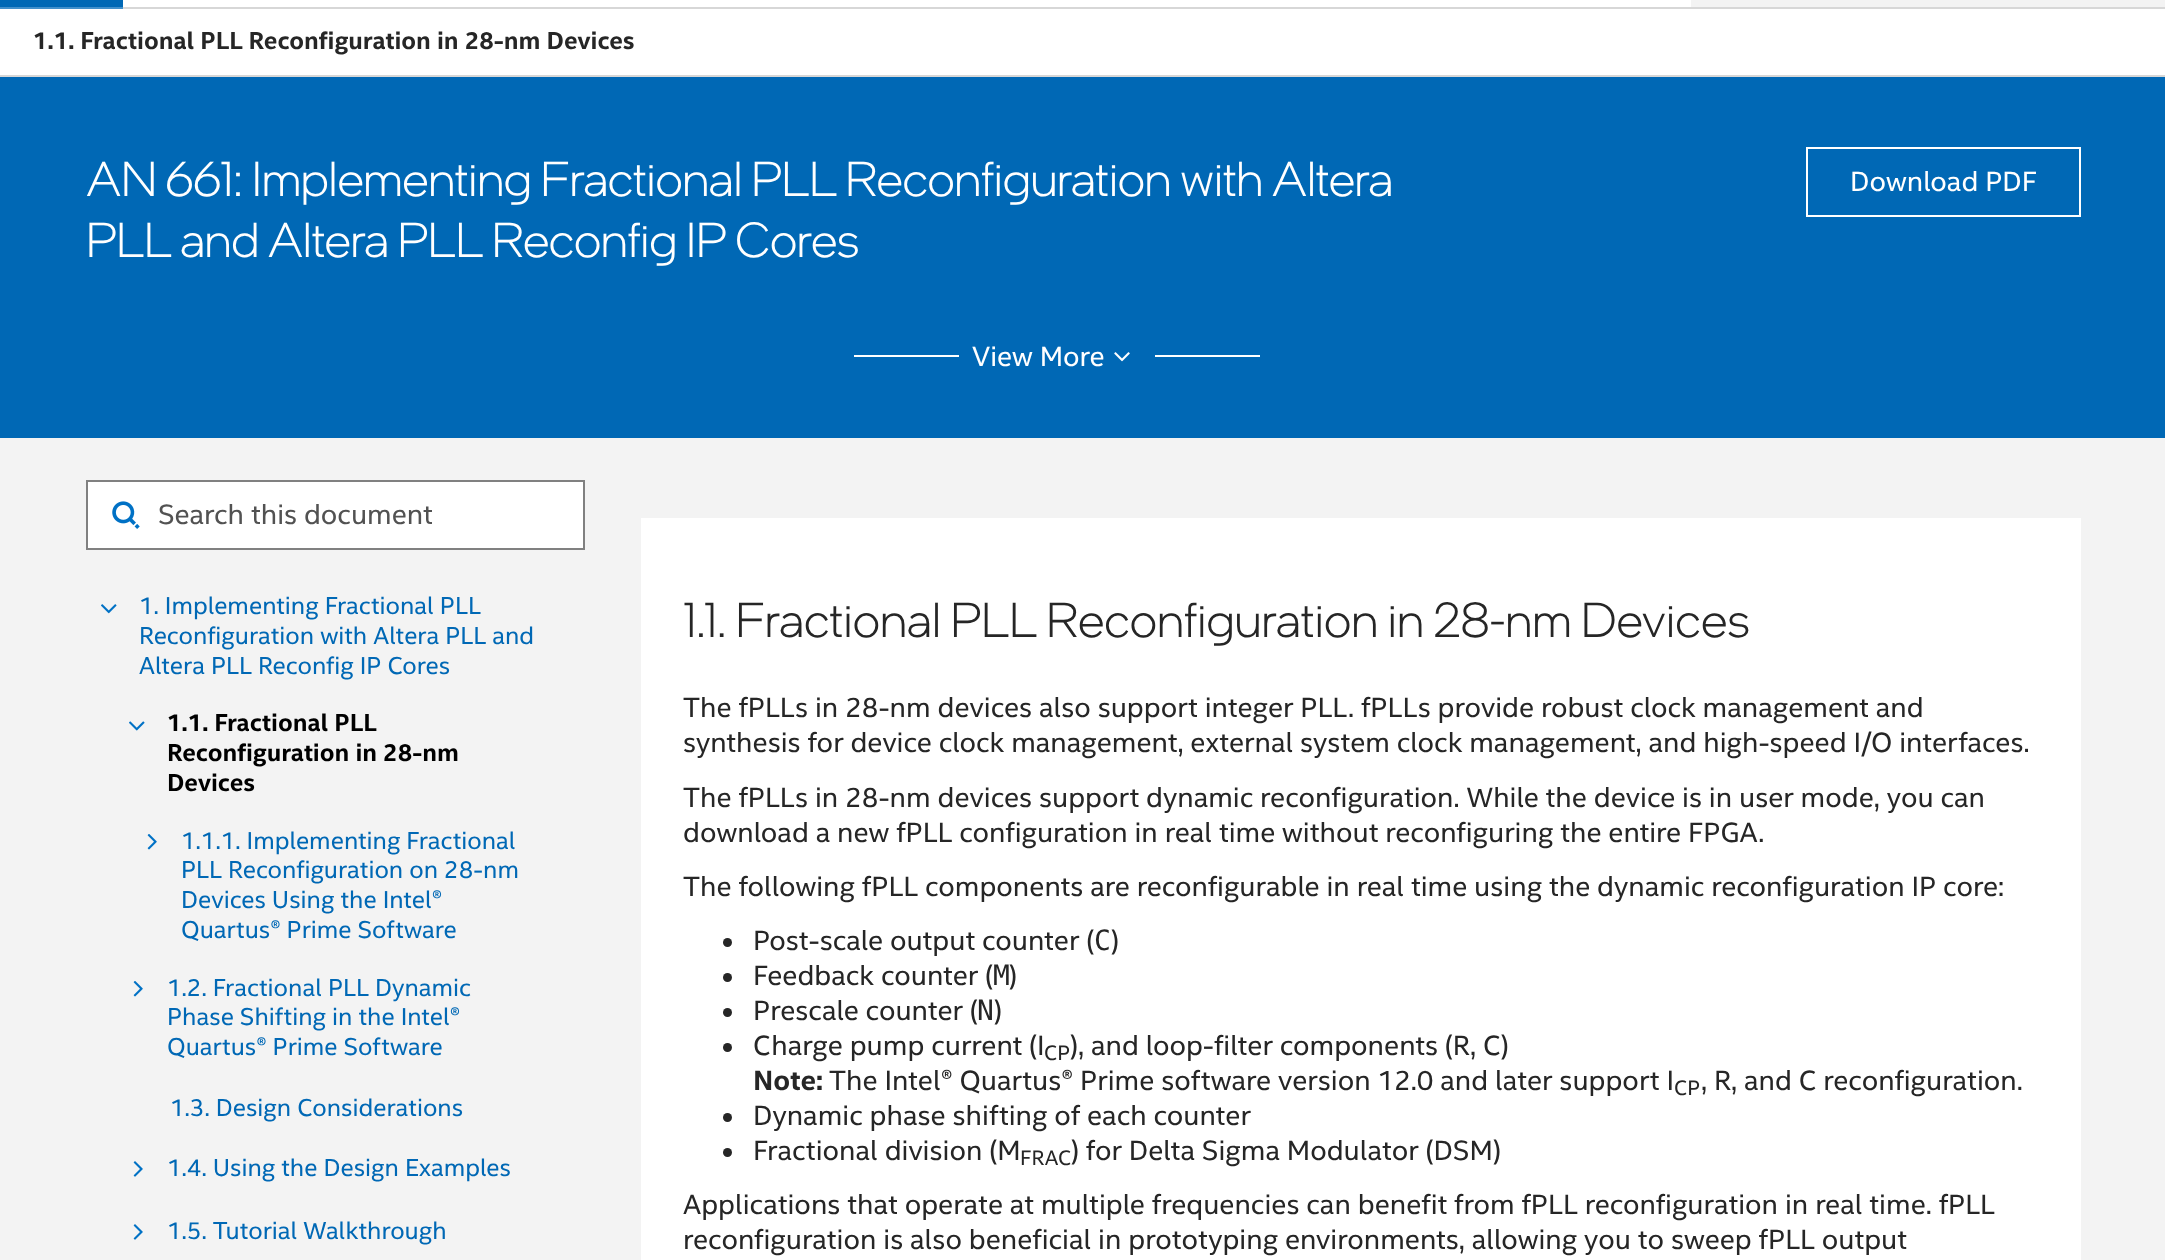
<svg xmlns="http://www.w3.org/2000/svg" width="2165" height="1260" viewBox="0 0 2165 1260">
  <rect width="100%" height="100%" fill="rgb(255,255,255)"/>
  <rect x="123" y="7" width="2042" height="2" fill="rgb(215,215,215)"/>
  <rect x="0" y="0" width="123" height="7" fill="rgb(0,104,181)"/>
  <rect x="0" y="7" width="123" height="2" fill="rgb(66,144,203)"/>
  <rect x="1691" y="0" width="474" height="7" fill="rgb(243,243,243)"/>
  <rect x="0" y="75" width="2165" height="2" fill="rgb(215,215,215)"/>
  <text x="33" y="49" font-family="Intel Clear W" font-size="24.5" font-weight="bold" fill="rgb(38,38,38)">1.1. Fractional PLL Reconfiguration in 28-nm Devices</text>
  <rect x="0" y="77" width="2165" height="361" fill="rgb(0,104,181)"/>
  <g font-family="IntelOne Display" font-size="49" font-weight="300" letter-spacing="-0.4" fill="rgb(255,255,255)">
    <text>
      <tspan x="86" y="196">AN 661: Implementing Fractional PLL Reconfiguration with Altera</tspan>
      <tspan x="86" y="257">PLL and Altera PLL Reconfig IP Cores</tspan>
    </text>
  </g>
  <rect x="1807" y="148" width="273" height="68" fill="none" stroke="rgb(255,255,255)" stroke-width="2"/>
  <text x="1850" y="191" font-family="Intel Clear W" font-size="28" fill="rgb(255,255,255)">Download PDF</text>
  <rect x="854" y="355" width="105" height="2" fill="rgb(255,255,255)"/>
  <text x="972" y="366" font-family="Intel Clear W" font-size="28" fill="rgb(255,255,255)">View More</text>
  <image x="1114" y="352" width="16" height="10" href="pic1.png"/>
  <rect x="1155" y="355" width="105" height="2" fill="rgb(255,255,255)"/>
  <rect x="0" y="438" width="2165" height="822" fill="rgb(243,243,243)"/>
  <rect x="87" y="481" width="497" height="68" fill="rgb(255,255,255)" stroke="rgb(128,128,128)" stroke-width="2"/>
  <image x="112" y="501" width="28" height="28" href="pic2.png"/>
  <text x="158" y="524" font-family="Intel Clear W" font-size="28" fill="rgb(82,82,82)">Search this document</text>
  <image x="101" y="604" width="16" height="10" href="pic3.png"/>
  <g font-family="Intel Clear W" font-size="24.5" fill="rgb(0,104,181)">
    <text>
      <tspan x="139" y="614">1. Implementing Fractional PLL</tspan>
      <tspan x="139" y="644">Reconfiguration with Altera PLL and</tspan>
      <tspan x="139" y="674">Altera PLL Reconfig IP Cores</tspan>
    </text>
  </g>
  <image x="129" y="721" width="16" height="10" href="pic4.png"/>
  <g font-family="Intel Clear W" font-size="24.5" font-weight="bold" fill="rgb(0,0,0)">
    <text>
      <tspan x="167" y="731">1.1. Fractional PLL</tspan>
      <tspan x="167" y="761">Reconfiguration in 28-nm</tspan>
      <tspan x="167" y="791">Devices</tspan>
    </text>
  </g>
  <image x="147" y="834" width="10" height="16" href="pic5.png"/>
  <g font-family="Intel Clear W" font-size="24.5" fill="rgb(0,104,181)">
    <text>
      <tspan x="181" y="849">1.1.1. Implementing Fractional</tspan>
      <tspan x="181" y="878">PLL Reconfiguration on 28-nm</tspan>
      <tspan x="181" y="908">Devices Using the Intel®</tspan>
      <tspan x="181" y="938">Quartus® Prime Software</tspan>
    </text>
  </g>
  <image x="133" y="981" width="10" height="16" href="pic5.png"/>
  <g font-family="Intel Clear W" font-size="24.5" fill="rgb(0,104,181)">
    <text>
      <tspan x="167" y="996">1.2. Fractional PLL Dynamic</tspan>
      <tspan x="167" y="1025">Phase Shifting in the Intel®</tspan>
      <tspan x="167" y="1055">Quartus® Prime Software</tspan>
    </text>
    <text x="170" y="1116">1.3. Design Considerations</text>
  </g>
  <image x="133" y="1161" width="10" height="16" href="pic6.png"/>
  <text x="167" y="1176" font-family="Intel Clear W" font-size="24.5" fill="rgb(0,104,181)">1.4. Using the Design Examples</text>
  <image x="133" y="1224" width="10" height="16" href="pic6.png"/>
  <text x="167" y="1239" font-family="Intel Clear W" font-size="24.5" fill="rgb(0,104,181)">1.5. Tutorial Walkthrough</text>
  <rect x="641" y="518" width="1440" height="742" fill="rgb(255,255,255)"/>
  <text x="683" y="637" font-family="IntelOne Display" font-size="49" font-weight="300" fill="rgb(38,38,38)">1.1. Fractional PLL Reconfiguration in 28-nm Devices</text>
  <g font-family="Intel Clear W" font-size="28" fill="rgb(38,38,38)">
    <text>
      <tspan x="683" y="717">The fPLLs in 28-nm devices also support integer PLL. fPLLs provide robust clock management and</tspan>
      <tspan x="683" y="752">synthesis for device clock management, external system clock management, and high-speed I/O interfaces.</tspan>
      <tspan x="683" y="807">The fPLLs in 28-nm devices support dynamic reconfiguration. While the device is in user mode, you can</tspan>
      <tspan x="683" y="842">download a new fPLL configuration in real time without reconfiguring the entire FPGA.</tspan>
      <tspan x="683" y="896">The following fPLL components are reconfigurable in real time using the dynamic reconfiguration IP core:</tspan>
    </text>
  </g>
  <circle cx="727.5" cy="942.5" r="4.5" fill="rgb(38,38,38)"/>
  <text x="753" y="950" font-family="Intel Clear W" font-size="28" fill="rgb(38,38,38)">Post-scale output counter (</text>
  <text x="1094" y="950" font-family="DejaVu Sans Mono" font-size="28" fill="rgb(38,38,38)">C</text>
  <text x="1111" y="950" font-family="Intel Clear W" font-size="28" fill="rgb(38,38,38)">)</text>
  <circle cx="727.5" cy="977.5" r="4.5" fill="rgb(38,38,38)"/>
  <text x="753" y="985" font-family="Intel Clear W" font-size="28" fill="rgb(38,38,38)">Feedback counter (</text>
  <text x="993" y="985" font-family="DejaVu Sans Mono" font-size="28" fill="rgb(38,38,38)">M</text>
  <text x="1009" y="985" font-family="Intel Clear W" font-size="28" fill="rgb(38,38,38)">)</text>
  <circle cx="727.5" cy="1012.5" r="4.5" fill="rgb(38,38,38)"/>
  <text x="753" y="1020" font-family="Intel Clear W" font-size="28" fill="rgb(38,38,38)">Prescale counter (</text>
  <text x="977" y="1020" font-family="DejaVu Sans Mono" font-size="28" fill="rgb(38,38,38)">N</text>
  <text x="994" y="1020" font-family="Intel Clear W" font-size="28" fill="rgb(38,38,38)">)</text>
  <circle cx="727.5" cy="1047.5" r="4.5" fill="rgb(38,38,38)"/>
  <text x="753" y="1055" font-family="Intel Clear W" font-size="28" fill="rgb(38,38,38)">Charge pump current (I</text>
  <text x="1044" y="1060" font-family="Intel Clear W" font-size="21" fill="rgb(38,38,38)">CP</text>
  <text x="1070" y="1055" font-family="Intel Clear W" font-size="28" fill="rgb(38,38,38)">), and loop-filter components (R, C)</text>
  <text x="753" y="1090" font-family="Intel Clear W" font-size="28" font-weight="bold" fill="rgb(38,38,38)">Note:</text>
  <text x="829" y="1090" font-family="Intel Clear W" font-size="28" fill="rgb(38,38,38)">The Intel® Quartus® Prime software version 12.0 and later support I</text>
  <text x="1674" y="1095" font-family="Intel Clear W" font-size="21" fill="rgb(38,38,38)">CP</text>
  <text x="1701" y="1090" font-family="Intel Clear W" font-size="28" fill="rgb(38,38,38)">, R, and C reconfiguration.</text>
  <circle cx="727.5" cy="1117.5" r="4.5" fill="rgb(38,38,38)"/>
  <text x="753" y="1125" font-family="Intel Clear W" font-size="28" fill="rgb(38,38,38)">Dynamic phase shifting of each counter</text>
  <circle cx="727.5" cy="1152.5" r="4.5" fill="rgb(38,38,38)"/>
  <text x="753" y="1160" font-family="Intel Clear W" font-size="28" fill="rgb(38,38,38)">Fractional division (M</text>
  <text x="1020" y="1165" font-family="Intel Clear W" font-size="21" fill="rgb(38,38,38)">FRAC</text>
  <g font-family="Intel Clear W" font-size="28" fill="rgb(38,38,38)">
    <text x="1071" y="1160">) for Delta Sigma Modulator (DSM)</text>
    <text>
      <tspan x="683" y="1214">Applications that operate at multiple frequencies can benefit from fPLL reconfiguration in real time. fPLL</tspan>
      <tspan x="683" y="1249">reconfiguration is also beneficial in prototyping environments, allowing you to sweep fPLL output</tspan>
    </text>
  </g>
</svg>
